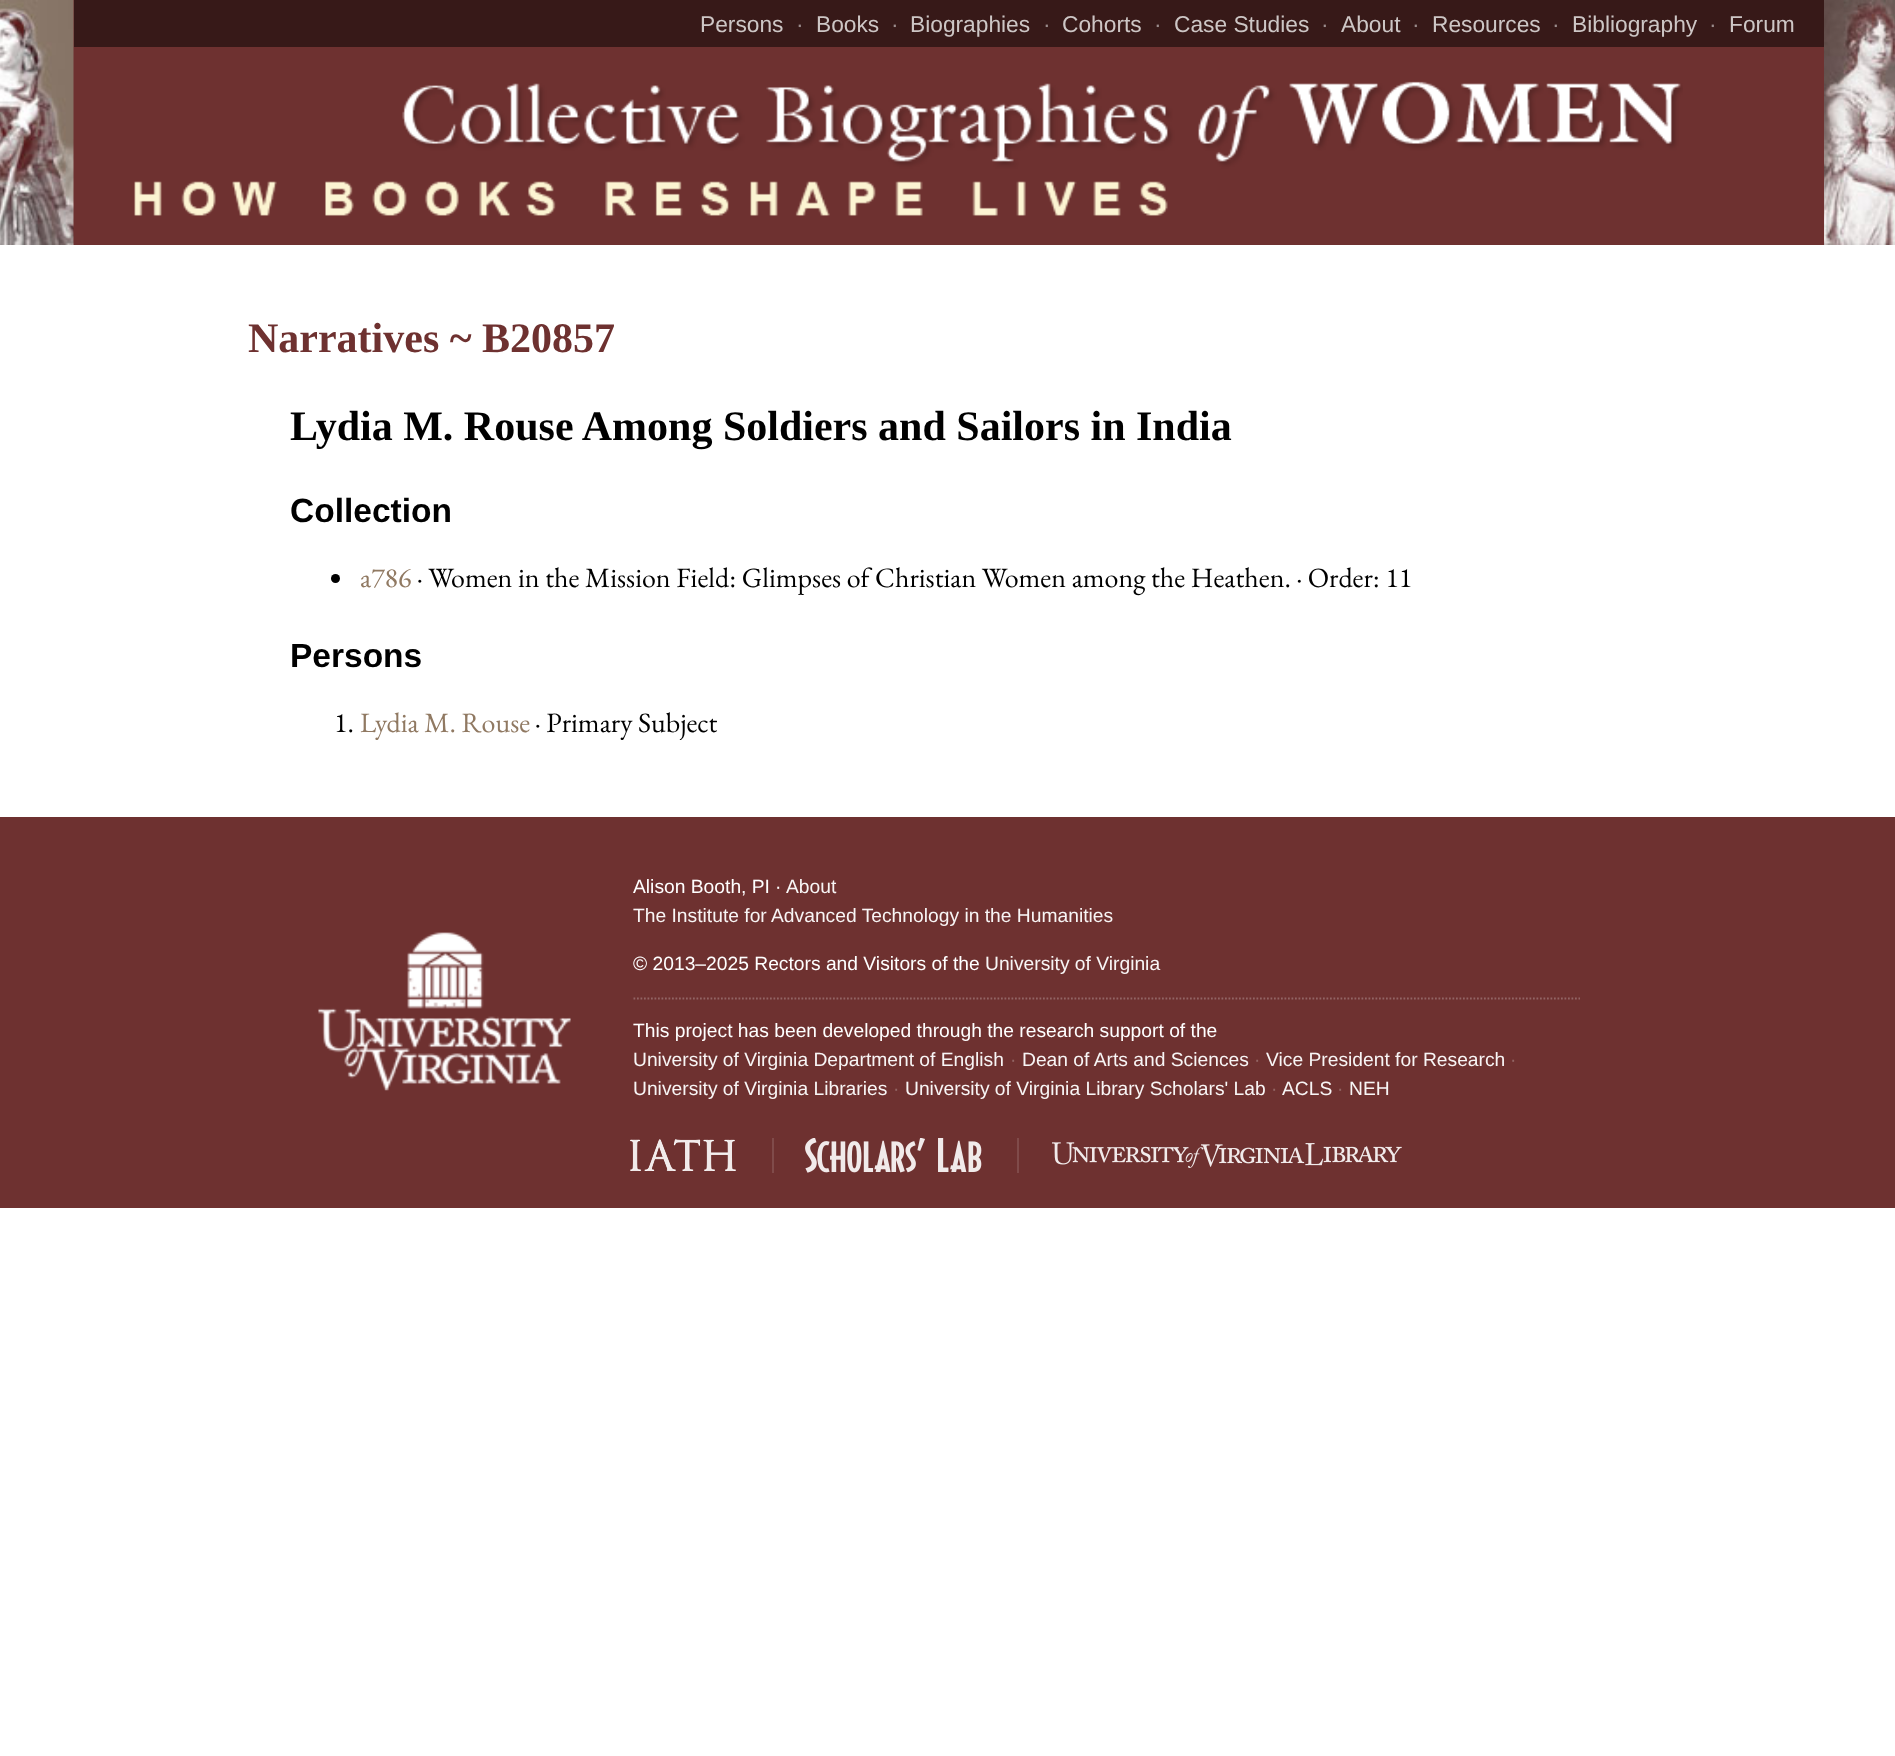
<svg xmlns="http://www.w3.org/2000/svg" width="1895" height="1756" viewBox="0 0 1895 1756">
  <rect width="100%" height="100%" fill="rgb(255,255,255)"/>
  <image x="0" y="0" width="1895" height="245" href="pic1.png"/>
  <rect x="1683" y="47" width="141" height="198" fill="rgb(110,49,48)"/>
  <image x="73" y="0" width="1610" height="245" href="pic2.png"/>
  <rect x="74" y="0" width="1750" height="47" fill="rgb(55,25,24)"/>
  <text x="700" y="32" font-family="Liberation Sans" font-size="22.75" fill="rgb(205,198,197)">Persons</text>
  <text x="796" y="32" font-family="Liberation Sans" font-size="22.75" fill="rgb(155,140,140)">·</text>
  <text x="816" y="32" font-family="Liberation Sans" font-size="22.75" fill="rgb(205,198,197)">Books</text>
  <text x="891" y="32" font-family="Liberation Sans" font-size="22.75" fill="rgb(155,140,140)">·</text>
  <text x="910" y="32" font-family="Liberation Sans" font-size="22.75" fill="rgb(205,198,197)">Biographies</text>
  <text x="1043" y="32" font-family="Liberation Sans" font-size="22.75" fill="rgb(155,140,140)">·</text>
  <text x="1062" y="32" font-family="Liberation Sans" font-size="22.75" fill="rgb(205,198,197)">Cohorts</text>
  <text x="1154" y="32" font-family="Liberation Sans" font-size="22.75" fill="rgb(155,140,140)">·</text>
  <text x="1174" y="32" font-family="Liberation Sans" font-size="22.75" fill="rgb(205,198,197)">Case Studies</text>
  <text x="1321" y="32" font-family="Liberation Sans" font-size="22.75" fill="rgb(155,140,140)">·</text>
  <text x="1341" y="32" font-family="Liberation Sans" font-size="22.75" fill="rgb(205,198,197)">About</text>
  <text x="1412" y="32" font-family="Liberation Sans" font-size="22.75" fill="rgb(155,140,140)">·</text>
  <text x="1432" y="32" font-family="Liberation Sans" font-size="22.75" fill="rgb(205,198,197)">Resources</text>
  <text x="1552" y="32" font-family="Liberation Sans" font-size="22.75" fill="rgb(155,140,140)">·</text>
  <text x="1572" y="32" font-family="Liberation Sans" font-size="22.75" fill="rgb(205,198,197)">Bibliography</text>
  <text x="1709" y="32" font-family="Liberation Sans" font-size="22.75" fill="rgb(155,140,140)">·</text>
  <text x="1729" y="32" font-family="Liberation Sans" font-size="22.75" fill="rgb(205,198,197)">Forum</text>
  <text x="248" y="352" font-family="Liberation Serif" font-size="42" font-weight="bold" fill="rgb(110,49,48)">Narratives ~ B20857</text>
  <text x="290" y="440" font-family="Liberation Serif" font-size="42" font-weight="bold" fill="rgb(0,0,0)">Lydia M. Rouse Among Soldiers and Sailors in India</text>
  <text x="290" y="522" font-family="Liberation Sans" font-size="33.5" font-weight="bold" fill="rgb(0,0,0)">Collection</text>
  <circle cx="335.5" cy="578.5" r="4.5" fill="rgb(0,0,0)"/>
  <text x="360" y="587" font-family="EB Garamond" font-size="28" fill="rgb(144,121,98)">a786</text>
  <text x="417" y="587" font-family="EB Garamond" font-size="28" fill="rgb(0,0,0)">· Women in the Mission Field: Glimpses of Christian Women among the Heathen. · Order: 11</text>
  <text x="290" y="667" font-family="Liberation Sans" font-size="33.5" font-weight="bold" fill="rgb(0,0,0)">Persons</text>
  <text x="334" y="732" font-family="EB Garamond" font-size="28" fill="rgb(0,0,0)">1.</text>
  <text x="360" y="732" font-family="EB Garamond" font-size="28" fill="rgb(144,121,98)">Lydia M. Rouse</text>
  <text x="535" y="732" font-family="EB Garamond" font-size="28" fill="rgb(0,0,0)">· Primary Subject</text>
  <rect x="0" y="817" width="1895" height="391" fill="rgb(110,49,48)"/>
  <image x="318" y="932" width="253" height="159" href="pic3.png"/>
  <g font-family="Liberation Sans" font-size="19.25" fill="rgb(255,255,255)">
    <text x="633" y="893">Alison Booth, PI</text>
    <text x="775" y="893">·</text>
  </g>
  <g font-family="Liberation Sans" font-size="19.25" fill="rgb(248,245,245)">
    <text x="786" y="893">About</text>
    <text x="633" y="922">The Institute for Advanced Technology in the Humanities</text>
  </g>
  <text x="633" y="970" font-family="Liberation Sans" font-size="19.25" fill="rgb(255,255,255)">© 2013–2025 Rectors and Visitors of the</text>
  <text x="985" y="970" font-family="Liberation Sans" font-size="19.25" fill="rgb(248,245,245)">University of Virginia</text>
  <path d="M633.5 998.5H1580" fill="none" stroke="rgb(146,101,100)" stroke-width="1.8" stroke-dasharray="1.75 1.75"/>
  <text x="633" y="1037" font-family="Liberation Sans" font-size="19.25" fill="rgb(255,255,255)">This project has been developed through the research support of the</text>
  <text x="633" y="1066" font-family="Liberation Sans" font-size="19.25" fill="rgb(248,245,245)">University of Virginia Department of English</text>
  <text x="1010" y="1066" font-family="Liberation Sans" font-size="19.25" fill="rgb(146,101,100)">·</text>
  <text x="1022" y="1066" font-family="Liberation Sans" font-size="19.25" fill="rgb(248,245,245)">Dean of Arts and Sciences</text>
  <text x="1254" y="1066" font-family="Liberation Sans" font-size="19.25" fill="rgb(146,101,100)">·</text>
  <text x="1266" y="1066" font-family="Liberation Sans" font-size="19.25" fill="rgb(248,245,245)">Vice President for Research</text>
  <text x="1510" y="1066" font-family="Liberation Sans" font-size="19.25" fill="rgb(146,101,100)">·</text>
  <text x="633" y="1095" font-family="Liberation Sans" font-size="19.25" fill="rgb(248,245,245)">University of Virginia Libraries</text>
  <text x="893" y="1095" font-family="Liberation Sans" font-size="19.25" fill="rgb(146,101,100)">·</text>
  <text x="905" y="1095" font-family="Liberation Sans" font-size="19.25" fill="rgb(248,245,245)">University of Virginia Library Scholars' Lab</text>
  <text x="1271" y="1095" font-family="Liberation Sans" font-size="19.25" fill="rgb(146,101,100)">·</text>
  <text x="1282" y="1095" font-family="Liberation Sans" font-size="19.25" fill="rgb(248,245,245)">ACLS</text>
  <text x="1337" y="1095" font-family="Liberation Sans" font-size="19.25" fill="rgb(146,101,100)">·</text>
  <text x="1349" y="1095" font-family="Liberation Sans" font-size="19.25" fill="rgb(248,245,245)">NEH</text>
  <image x="630" y="1139" width="106" height="32" href="pic4.png"/>
  <rect x="772" y="1138" width="2" height="35" fill="rgb(128,75,74)"/>
  <image x="805" y="1138" width="177" height="35" href="pic5.png"/>
  <rect x="1017" y="1138" width="2" height="35" fill="rgb(128,75,74)"/>
  <image x="1052" y="1142" width="350" height="26" href="pic6.png"/>
</svg>
